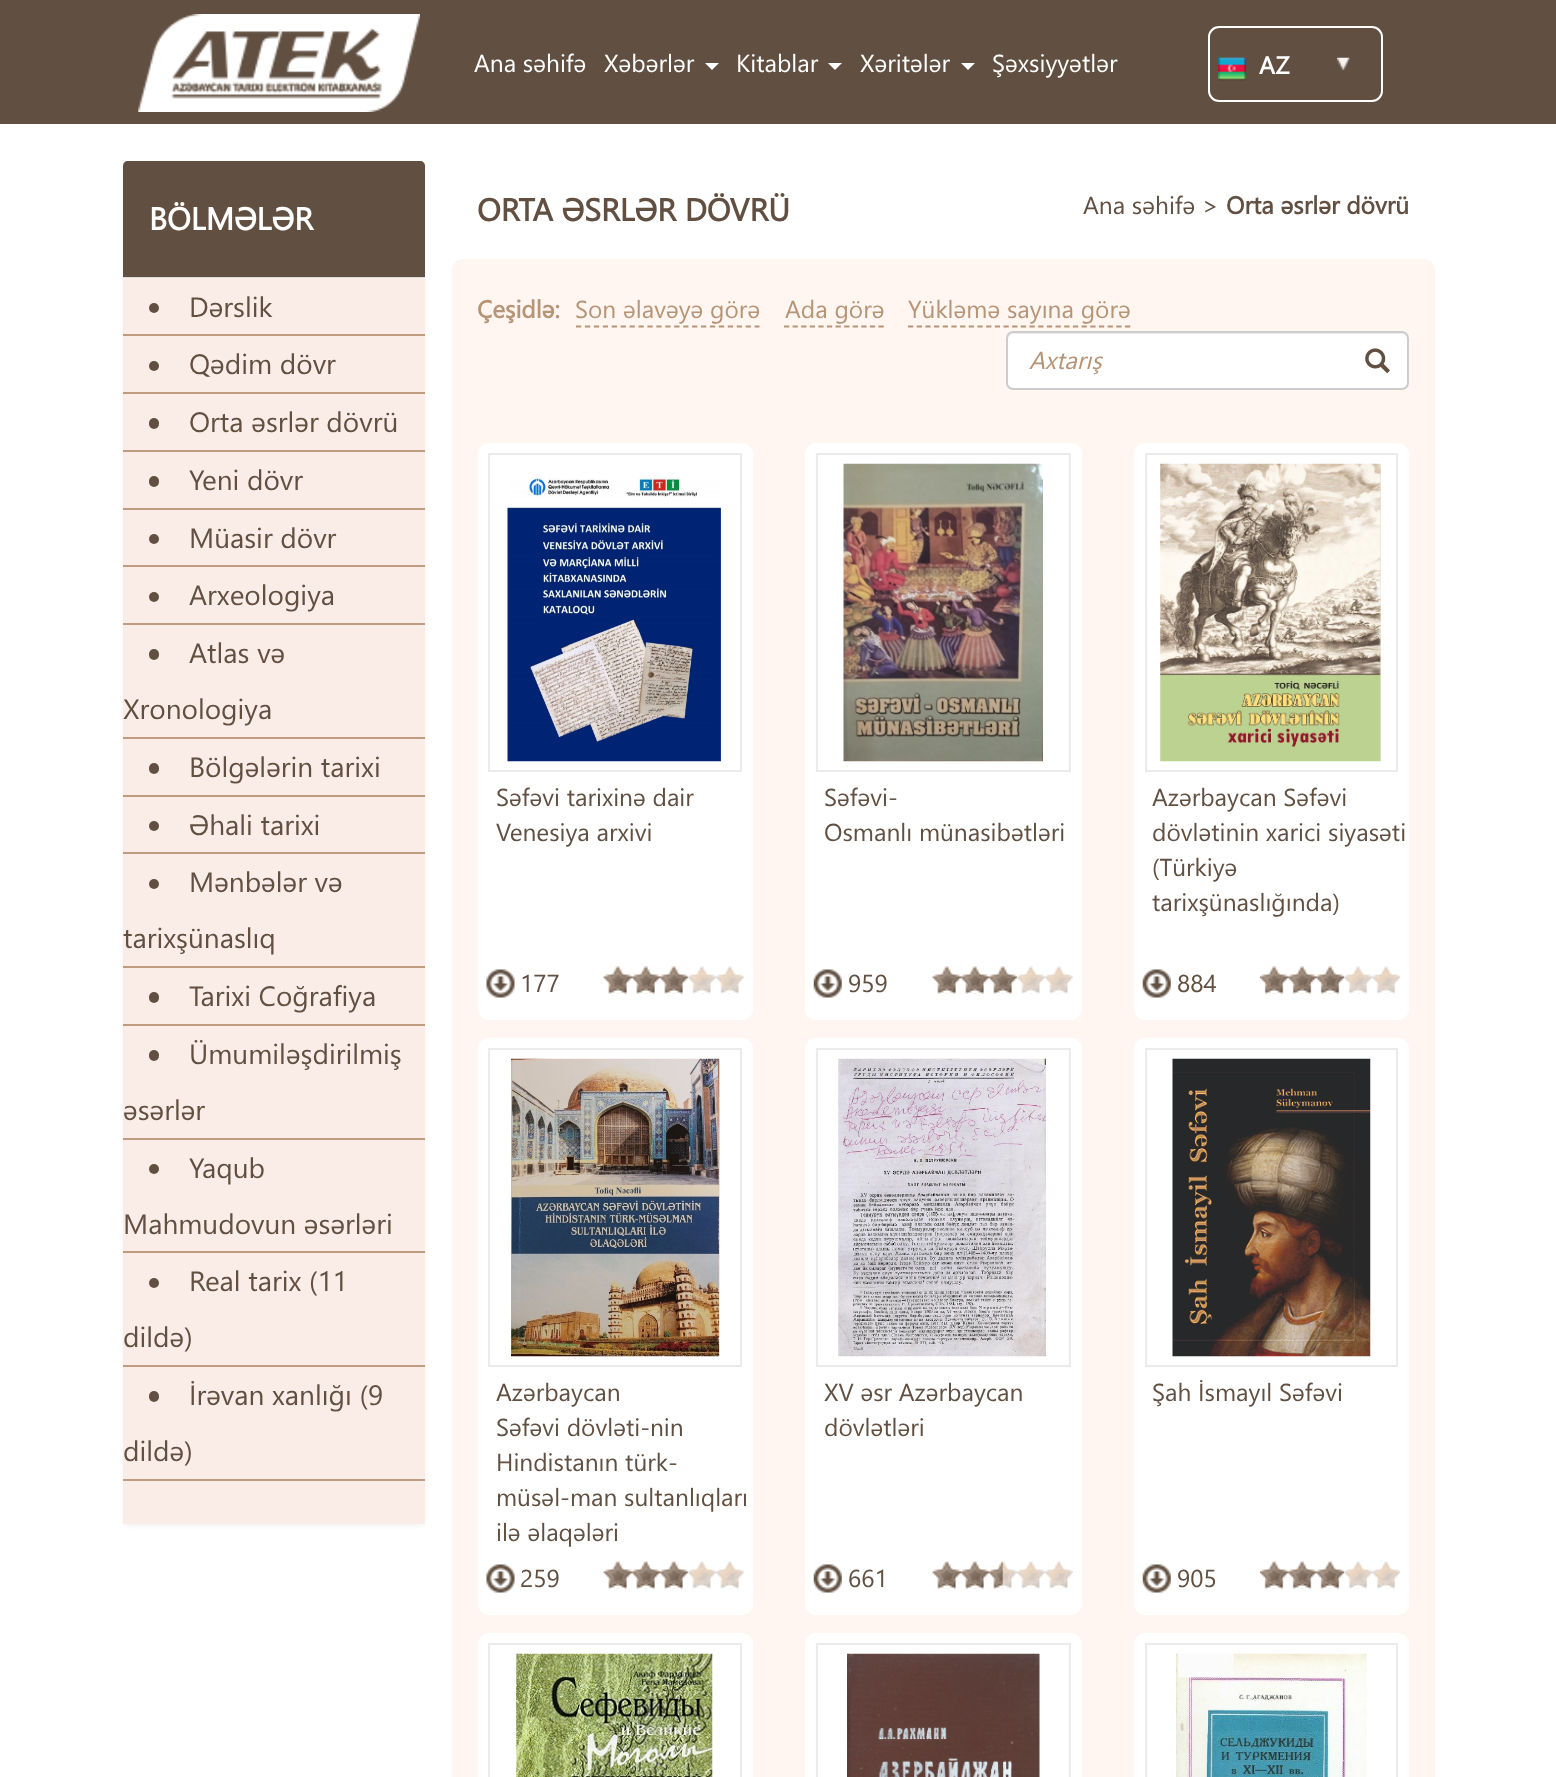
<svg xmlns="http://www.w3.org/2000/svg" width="1556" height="1777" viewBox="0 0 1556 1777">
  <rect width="100%" height="100%" fill="rgb(255,255,255)"/>
  <rect x="0" y="0" width="1556" height="124" fill="rgb(97,80,65)"/>
  <image x="138" y="14" width="282" height="98" href="pic1.png"/>
  <g font-family="Segoe UI" font-size="24.5" fill="rgb(255,255,255)">
    <text x="474" y="72">Ana səhifə</text>
    <text x="604" y="72">Xəbərlər</text>
  </g>
  <path d="M705 63H719L712 70Z" fill="rgb(255,255,255)"/>
  <text x="736" y="72" font-family="Segoe UI" font-size="24.5" fill="rgb(255,255,255)">Kitablar</text>
  <path d="M828 63H842L835 70Z" fill="rgb(255,255,255)"/>
  <text x="860" y="72" font-family="Segoe UI" font-size="24.5" fill="rgb(255,255,255)">Xəritələr</text>
  <path d="M961 63H975L968 70Z" fill="rgb(255,255,255)"/>
  <text x="992" y="72" font-family="Segoe UI" font-size="24.5" fill="rgb(255,255,255)">Şəxsiyyətlər</text>
  <image x="1337" y="57" width="13" height="13" href="pic2.png"/>
  <rect x="1209" y="27" width="173" height="74" rx="10" fill="none" stroke="rgb(255,255,255)" stroke-width="2"/>
  <image x="1218" y="57" width="28" height="24" href="pic3.png"/>
  <text x="1259" y="74" font-family="Segoe UI" font-size="24.5" font-weight="bold" fill="rgb(255,255,255)">AZ</text>
  <rect x="123" y="163" width="302" height="1363" rx="7" fill="rgba(0,0,0,0.05)" filter="blur(2px)"/>
  <path d="M128 161H420C423 161 425 163 425 166V278H123V166C123 163 125 161 128 161Z" fill="rgb(97,80,65)"/>
  <rect x="123" y="277" width="302" height="1" fill="rgb(221,221,221)"/>
  <text x="149" y="230" font-family="Segoe UI" font-size="31.5" font-weight="bold" fill="rgb(255,255,255)">BÖLMƏLƏR</text>
  <rect x="123" y="278" width="302" height="1246" fill="rgb(250,237,232)"/>
  <rect x="123" y="334" width="302" height="2" fill="rgb(191,156,126)"/>
  <circle cx="154" cy="308" r="5" fill="rgb(97,80,65)"/>
  <text x="189" y="317" font-family="Segoe UI" font-size="28" fill="rgb(97,80,65)">Dərslik</text>
  <rect x="123" y="392" width="302" height="2" fill="rgb(191,156,126)"/>
  <circle cx="154" cy="366" r="5" fill="rgb(97,80,65)"/>
  <text x="189" y="374" font-family="Segoe UI" font-size="28" fill="rgb(97,80,65)">Qədim dövr</text>
  <rect x="123" y="450" width="302" height="2" fill="rgb(191,156,126)"/>
  <rect x="149" y="418" width="10" height="11" rx="5" fill="rgb(97,80,65)"/>
  <text x="189" y="432" font-family="Segoe UI" font-size="28" fill="rgb(97,80,65)">Orta əsrlər dövrü</text>
  <rect x="123" y="508" width="302" height="2" fill="rgb(191,156,126)"/>
  <rect x="149" y="476" width="10" height="11" rx="5" fill="rgb(97,80,65)"/>
  <text x="189" y="490" font-family="Segoe UI" font-size="28" fill="rgb(97,80,65)">Yeni dövr</text>
  <rect x="123" y="565" width="302" height="2" fill="rgb(191,156,126)"/>
  <circle cx="154" cy="539" r="5" fill="rgb(97,80,65)"/>
  <text x="189" y="548" font-family="Segoe UI" font-size="28" fill="rgb(97,80,65)">Müasir dövr</text>
  <rect x="123" y="623" width="302" height="2" fill="rgb(191,156,126)"/>
  <circle cx="154" cy="597" r="5" fill="rgb(97,80,65)"/>
  <text x="189" y="605" font-family="Segoe UI" font-size="28" fill="rgb(97,80,65)">Arxeologiya</text>
  <rect x="123" y="737" width="302" height="2" fill="rgb(191,156,126)"/>
  <rect x="149" y="649" width="10" height="11" rx="5" fill="rgb(97,80,65)"/>
  <g font-family="Segoe UI" font-size="28" fill="rgb(97,80,65)">
    <text x="189" y="663">Atlas və</text>
    <text x="123" y="719">Xronologiya</text>
  </g>
  <rect x="123" y="795" width="302" height="2" fill="rgb(191,156,126)"/>
  <rect x="149" y="763" width="10" height="11" rx="5" fill="rgb(97,80,65)"/>
  <text x="189" y="777" font-family="Segoe UI" font-size="28" fill="rgb(97,80,65)">Bölgələrin tarixi</text>
  <rect x="123" y="852" width="302" height="2" fill="rgb(191,156,126)"/>
  <circle cx="154" cy="826" r="5" fill="rgb(97,80,65)"/>
  <text x="189" y="835" font-family="Segoe UI" font-size="28" fill="rgb(97,80,65)">Əhali tarixi</text>
  <rect x="123" y="966" width="302" height="2" fill="rgb(191,156,126)"/>
  <circle cx="154" cy="884" r="5" fill="rgb(97,80,65)"/>
  <g font-family="Segoe UI" font-size="28" fill="rgb(97,80,65)">
    <text x="189" y="892">Mənbələr və</text>
    <text x="123" y="948">tarixşünaslıq</text>
  </g>
  <rect x="123" y="1024" width="302" height="2" fill="rgb(191,156,126)"/>
  <rect x="149" y="992" width="10" height="11" rx="5" fill="rgb(97,80,65)"/>
  <text x="189" y="1006" font-family="Segoe UI" font-size="28" fill="rgb(97,80,65)">Tarixi Coğrafiya</text>
  <rect x="123" y="1138" width="302" height="2" fill="rgb(191,156,126)"/>
  <rect x="149" y="1050" width="10" height="11" rx="5" fill="rgb(97,80,65)"/>
  <g font-family="Segoe UI" font-size="28" fill="rgb(97,80,65)">
    <text x="189" y="1064">Ümumiləşdirilmiş</text>
    <text x="123" y="1120">əsərlər</text>
  </g>
  <rect x="123" y="1251" width="302" height="2" fill="rgb(191,156,126)"/>
  <circle cx="154" cy="1169" r="5" fill="rgb(97,80,65)"/>
  <g font-family="Segoe UI" font-size="28" fill="rgb(97,80,65)">
    <text x="189" y="1178">Yaqub</text>
    <text x="123" y="1234">Mahmudovun əsərləri</text>
  </g>
  <rect x="123" y="1365" width="302" height="2" fill="rgb(191,156,126)"/>
  <circle cx="154" cy="1283" r="5" fill="rgb(97,80,65)"/>
  <g font-family="Segoe UI" font-size="28" fill="rgb(97,80,65)">
    <text x="189" y="1291">Real tarix (11</text>
    <text x="123" y="1347">dildə)</text>
  </g>
  <rect x="123" y="1479" width="302" height="2" fill="rgb(191,156,126)"/>
  <rect x="149" y="1391" width="10" height="11" rx="5" fill="rgb(97,80,65)"/>
  <g font-family="Segoe UI" font-size="28" fill="rgb(97,80,65)">
    <text x="189" y="1405">İrəvan xanlığı (9</text>
    <text x="123" y="1461">dildə)</text>
  </g>
  <text x="477" y="221" font-family="Segoe UI" font-size="31.5" font-weight="bold" fill="rgb(97,80,65)">ORTA ƏSRLƏR DÖVRÜ</text>
  <text x="1083" y="214" font-family="Segoe UI" font-size="24.5" fill="rgb(97,80,65)">Ana səhifə &gt;</text>
  <text x="1226" y="214" font-family="Segoe UI" font-size="24.5" font-weight="bold" fill="rgb(97,80,65)">Orta əsrlər dövrü</text>
  <rect x="452" y="259" width="983" height="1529" rx="11" fill="rgb(255,245,241)"/>
  <text x="477" y="318" font-family="Segoe UI" font-size="24.5" font-weight="bold" fill="rgb(182,148,118)">Çeşidlə:</text>
  <text x="575" y="318" font-family="Segoe UI" font-size="24.5" fill="rgb(182,148,118)">Son əlavəyə görə</text>
  <path d="M576 326.5H759.5" fill="none" stroke="rgb(182,148,118)" stroke-width="1.8" stroke-dasharray="5.25 3.68"/>
  <text x="785" y="318" font-family="Segoe UI" font-size="24.5" fill="rgb(182,148,118)">Ada görə</text>
  <path d="M784 326.5H884" fill="none" stroke="rgb(182,148,118)" stroke-width="1.8" stroke-dasharray="5.25 3.34"/>
  <text x="908" y="318" font-family="Segoe UI" font-size="24.5" fill="rgb(182,148,118)">Yükləmə sayına görə</text>
  <path d="M908 326.5H1130.5" fill="none" stroke="rgb(182,148,118)" stroke-width="1.8" stroke-dasharray="5.25 3.43"/>
  <rect x="1006" y="331" width="403" height="59" rx="7" fill="rgb(255,255,255)"/>
  <path d="M1013 334H1402C1405 334 1407 337 1407 340V338C1407 335 1405 333 1402 333H1013C1010 333 1008 335 1008 338V340C1008 337 1010 334 1013 334Z" fill="rgb(236,236,236)"/>
  <rect x="1007" y="332" width="401" height="57" rx="6" fill="none" stroke="rgb(204,204,204)" stroke-width="2"/>
  <text x="1029" y="369" font-family="Segoe UI" font-size="24.5" font-style="italic" fill="rgb(182,148,118)">Axtarış</text>
  <image x="1365" y="348" width="25" height="25" href="pic4.png"/>
  <rect x="479" y="444" width="273" height="575" rx="10" fill="rgb(255,255,255)" stroke="rgb(255,255,255)" stroke-width="2"/>
  <rect x="489" y="454" width="252" height="317" fill="none" stroke="rgb(235,235,235)" stroke-width="2"/>
  <image x="507" y="477" width="214" height="285" href="pic5.png"/>
  <g font-family="Segoe UI" font-size="24.5" fill="rgb(97,80,65)">
    <text>
      <tspan x="496" y="806">Səfəvi tarixinə dair</tspan>
      <tspan x="496" y="841">Venesiya arxivi</tspan>
    </text>
  </g>
  <image x="486" y="969" width="29" height="29" href="pic6.png"/>
  <text x="520" y="992" font-family="Segoe UI" font-size="24.5" fill="rgb(97,80,65)">177</text>
  <image x="603" y="966" width="141" height="28" href="pic7.png"/>
  <image x="603" y="966" width="85" height="28" href="pic8.png"/>
  <rect x="806" y="444" width="275" height="575" rx="10" fill="rgb(255,255,255)" stroke="rgb(255,255,255)" stroke-width="2"/>
  <rect x="817" y="454" width="253" height="317" fill="none" stroke="rgb(235,235,235)" stroke-width="2"/>
  <image x="843" y="463" width="200" height="299" href="pic9.png"/>
  <g font-family="Segoe UI" font-size="24.5" fill="rgb(97,80,65)">
    <text>
      <tspan x="824" y="806">Səfəvi‐</tspan>
      <tspan x="824" y="841">Osmanlı münasibətləri</tspan>
    </text>
  </g>
  <image x="813" y="969" width="29" height="29" href="pic10.png"/>
  <text x="848" y="992" font-family="Segoe UI" font-size="24.5" fill="rgb(97,80,65)">959</text>
  <image x="932" y="966" width="141" height="28" href="pic11.png"/>
  <image x="932" y="966" width="85" height="28" href="pic12.png"/>
  <rect x="1135" y="444" width="273" height="575" rx="10" fill="rgb(255,255,255)" stroke="rgb(255,255,255)" stroke-width="2"/>
  <rect x="1146" y="454" width="251" height="317" fill="none" stroke="rgb(235,235,235)" stroke-width="2"/>
  <image x="1160" y="463" width="221" height="299" href="pic13.png"/>
  <g font-family="Segoe UI" font-size="24.5" fill="rgb(97,80,65)">
    <text>
      <tspan x="1152" y="806">Azərbaycan Səfəvi</tspan>
      <tspan x="1152" y="841">dövlətinin xarici siyasəti</tspan>
      <tspan x="1152" y="876">(Türkiyə</tspan>
      <tspan x="1152" y="911">tarixşünaslığında)</tspan>
    </text>
  </g>
  <image x="1142" y="969" width="29" height="29" href="pic10.png"/>
  <text x="1177" y="992" font-family="Segoe UI" font-size="24.5" fill="rgb(97,80,65)">884</text>
  <image x="1260" y="966" width="140" height="28" href="pic14.png"/>
  <image x="1260" y="966" width="84" height="28" href="pic15.png"/>
  <rect x="479" y="1039" width="273" height="575" rx="10" fill="rgb(255,255,255)" stroke="rgb(255,255,255)" stroke-width="2"/>
  <rect x="489" y="1049" width="252" height="317" fill="none" stroke="rgb(235,235,235)" stroke-width="2"/>
  <image x="511" y="1058" width="209" height="299" href="pic16.png"/>
  <g font-family="Segoe UI" font-size="24.5" fill="rgb(97,80,65)">
    <text>
      <tspan x="496" y="1401">Azərbaycan</tspan>
      <tspan x="496" y="1436">Səfəvi dövləti-nin</tspan>
      <tspan x="496" y="1471">Hindistanın türk‐</tspan>
      <tspan x="496" y="1506">müsəl-man sultanlıqları</tspan>
      <tspan x="496" y="1541">ilə əlaqələri</tspan>
    </text>
  </g>
  <image x="486" y="1564" width="29" height="29" href="pic6.png"/>
  <text x="520" y="1587" font-family="Segoe UI" font-size="24.5" fill="rgb(97,80,65)">259</text>
  <image x="603" y="1561" width="141" height="28" href="pic17.png"/>
  <image x="603" y="1561" width="85" height="28" href="pic18.png"/>
  <rect x="806" y="1039" width="275" height="575" rx="10" fill="rgb(255,255,255)" stroke="rgb(255,255,255)" stroke-width="2"/>
  <rect x="817" y="1049" width="253" height="317" fill="none" stroke="rgb(235,235,235)" stroke-width="2"/>
  <image x="838" y="1058" width="208" height="299" href="pic19.png"/>
  <g font-family="Segoe UI" font-size="24.5" fill="rgb(97,80,65)">
    <text>
      <tspan x="824" y="1401">XV əsr Azərbaycan</tspan>
      <tspan x="824" y="1436">dövlətləri</tspan>
    </text>
  </g>
  <image x="813" y="1564" width="29" height="29" href="pic10.png"/>
  <text x="848" y="1587" font-family="Segoe UI" font-size="24.5" fill="rgb(97,80,65)">661</text>
  <image x="932" y="1561" width="141" height="28" href="pic20.png"/>
  <image x="932" y="1561" width="71" height="28" href="pic21.png"/>
  <rect x="1135" y="1039" width="273" height="575" rx="10" fill="rgb(255,255,255)" stroke="rgb(255,255,255)" stroke-width="2"/>
  <rect x="1146" y="1049" width="251" height="317" fill="none" stroke="rgb(235,235,235)" stroke-width="2"/>
  <image x="1172" y="1058" width="199" height="299" href="pic22.png"/>
  <text x="1152" y="1401" font-family="Segoe UI" font-size="24.5" fill="rgb(97,80,65)">Şah İsmayıl Səfəvi</text>
  <image x="1142" y="1564" width="29" height="29" href="pic10.png"/>
  <text x="1177" y="1587" font-family="Segoe UI" font-size="24.5" fill="rgb(97,80,65)">905</text>
  <image x="1260" y="1561" width="140" height="28" href="pic23.png"/>
  <image x="1260" y="1561" width="84" height="28" href="pic24.png"/>
  <rect x="479" y="1634" width="273" height="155" rx="10" fill="rgb(255,255,255)" stroke="rgb(255,255,255)" stroke-width="2"/>
  <rect x="489" y="1644" width="252" height="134" fill="none" stroke="rgb(235,235,235)" stroke-width="2"/>
  <image x="516" y="1653" width="197" height="124" href="pic25.png"/>
  <rect x="806" y="1634" width="275" height="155" rx="10" fill="rgb(255,255,255)" stroke="rgb(255,255,255)" stroke-width="2"/>
  <rect x="817" y="1644" width="253" height="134" fill="none" stroke="rgb(235,235,235)" stroke-width="2"/>
  <image x="847" y="1653" width="193" height="124" href="pic26.png"/>
  <rect x="1135" y="1634" width="273" height="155" rx="10" fill="rgb(255,255,255)" stroke="rgb(255,255,255)" stroke-width="2"/>
  <rect x="1146" y="1644" width="251" height="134" fill="none" stroke="rgb(235,235,235)" stroke-width="2"/>
  <image x="1176" y="1653" width="191" height="124" href="pic27.png"/>
</svg>
